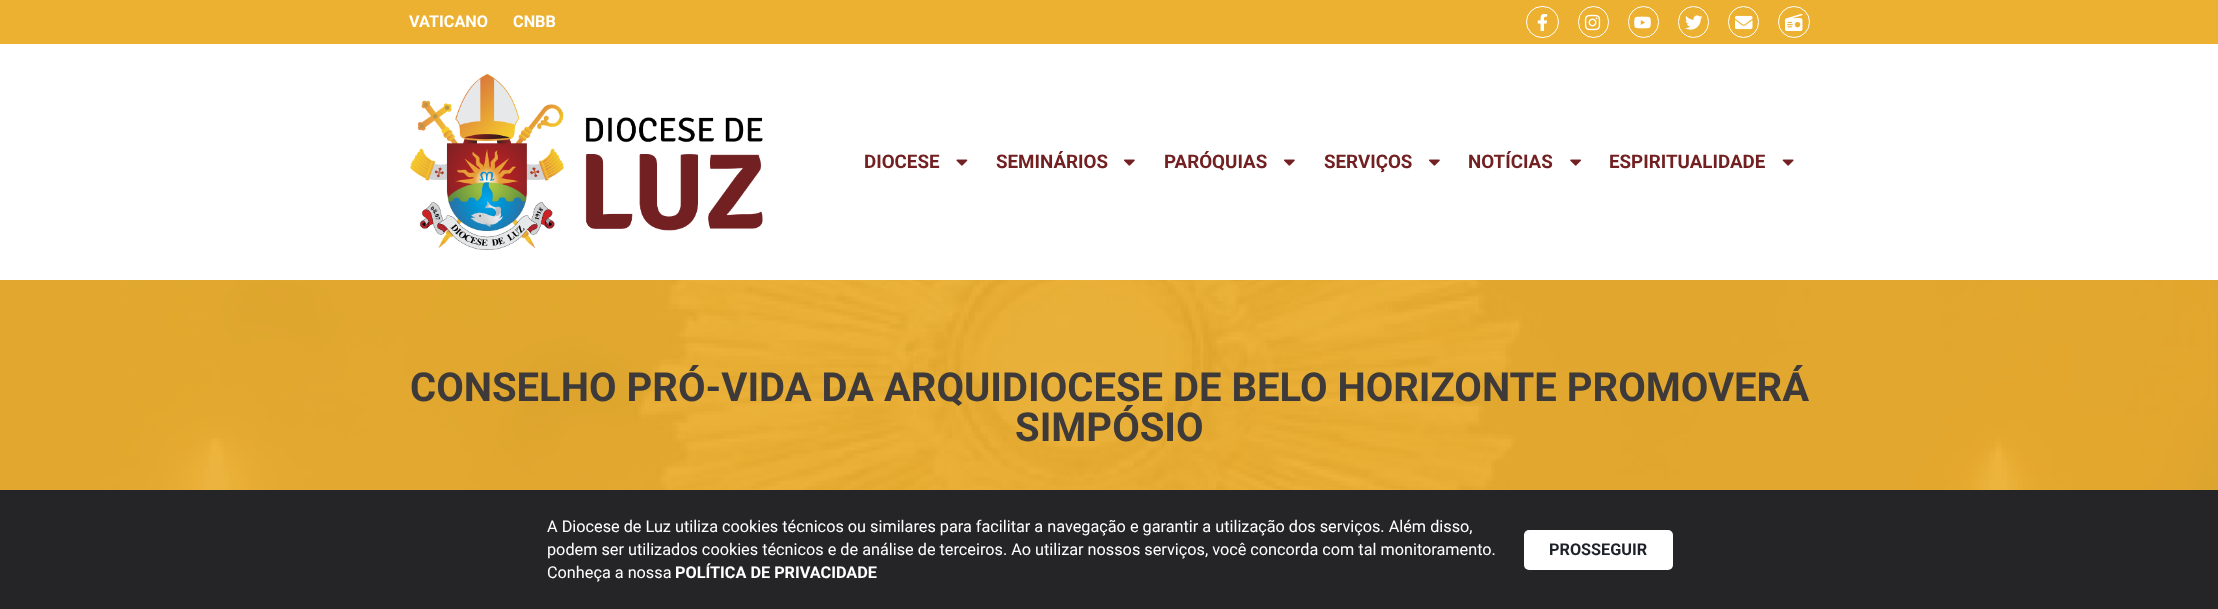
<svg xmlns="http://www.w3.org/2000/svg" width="2218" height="609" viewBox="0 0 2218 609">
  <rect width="100%" height="100%" fill="rgb(255,255,255)"/>
  <rect x="0" y="0" width="2218" height="44" fill="rgb(237,177,49)"/>
  <g font-family="Roboto" font-size="16.25" font-weight="bold" fill="rgb(255,255,255)">
    <text x="409" y="27">VATICANO</text>
    <text x="513" y="27">CNBB</text>
  </g>
  <rect x="1526.5" y="6.5" width="32" height="31" rx="15.5" fill="none" stroke="rgb(255,255,255)"/>
  <image x="1537" y="14" width="11" height="17" href="pic1.png"/>
  <rect x="1578.5" y="6.5" width="30" height="31" rx="15" fill="none" stroke="rgb(255,255,255)"/>
  <image x="1584" y="14" width="17" height="17" href="pic2.png"/>
  <rect x="1628.5" y="6.5" width="30" height="31" rx="15" fill="none" stroke="rgb(255,255,255)"/>
  <image x="1634" y="16" width="17" height="13" href="pic3.png"/>
  <rect x="1678.5" y="6.5" width="30" height="31" rx="15" fill="none" stroke="rgb(255,255,255)"/>
  <image x="1685" y="15" width="18" height="15" href="pic4.png"/>
  <rect x="1728.5" y="6.5" width="30" height="31" rx="15" fill="none" stroke="rgb(255,255,255)"/>
  <image x="1735" y="15" width="18" height="15" href="pic5.png"/>
  <circle cx="1794" cy="22" r="15.5" fill="none" stroke="rgb(255,255,255)"/>
  <image x="1785" y="14" width="18" height="17" href="pic6.png"/>
  <image x="410" y="73" width="353" height="177" href="pic7.png"/>
  <text x="864" y="168" font-family="Roboto" font-size="18.75" font-weight="bold" fill="rgb(114,32,34)">DIOCESE</text>
  <image x="956" y="159" width="12" height="7" href="pic8.png"/>
  <text x="996" y="168" font-family="Roboto" font-size="18.75" font-weight="bold" fill="rgb(114,32,34)">SEMINÁRIOS</text>
  <image x="1124" y="159" width="11" height="7" href="pic9.png"/>
  <text x="1164" y="168" font-family="Roboto" font-size="18.75" font-weight="bold" fill="rgb(114,32,34)">PARÓQUIAS</text>
  <image x="1284" y="159" width="11" height="7" href="pic9.png"/>
  <text x="1324" y="168" font-family="Roboto" font-size="18.75" font-weight="bold" fill="rgb(114,32,34)">SERVIÇOS</text>
  <image x="1429" y="159" width="11" height="7" href="pic9.png"/>
  <text x="1468" y="168" font-family="Roboto" font-size="18.75" font-weight="bold" fill="rgb(114,32,34)">NOTÍCIAS</text>
  <image x="1570" y="159" width="11" height="7" href="pic10.png"/>
  <text x="1609" y="168" font-family="Roboto" font-size="18.75" font-weight="bold" fill="rgb(114,32,34)">ESPIRITUALIDADE</text>
  <image x="1782" y="159" width="12" height="7" href="pic11.png"/>
  <image x="0" y="280" width="2218" height="210" href="pic12.png"/>
  <g font-family="Roboto" font-size="40" font-weight="bold" fill="rgb(62,58,58)">
    <text x="410" y="401">CONSELHO PRÓ-VIDA DA ARQUIDIOCESE DE BELO HORIZONTE PROMOVERÁ</text>
    <text x="1015" y="441">SIMPÓSIO</text>
  </g>
  <rect x="0" y="490" width="2218" height="119" fill="rgb(37,37,40)"/>
  <g font-family="Roboto" font-size="16.25" fill="rgb(255,255,255)">
    <text>
      <tspan x="547" y="532">A Diocese de Luz utiliza cookies técnicos ou similares para facilitar a navegação e garantir a utilização dos serviços. Além disso,</tspan>
      <tspan x="547" y="555">podem ser utilizados cookies técnicos e de análise de terceiros. Ao utilizar nossos serviços, você concorda com tal monitoramento.</tspan>
      <tspan x="547" y="578">Conheça a nossa</tspan>
    </text>
  </g>
  <text x="675" y="578" font-family="Roboto" font-size="16.25" font-weight="bold" fill="rgb(255,255,255)">POLÍTICA DE PRIVACIDADE</text>
  <rect x="1524" y="530" width="149" height="40" rx="5" fill="rgb(255,255,255)"/>
  <text x="1549" y="555" font-family="Roboto" font-size="16.25" font-weight="bold" fill="rgb(29,33,41)">PROSSEGUIR</text>
</svg>
